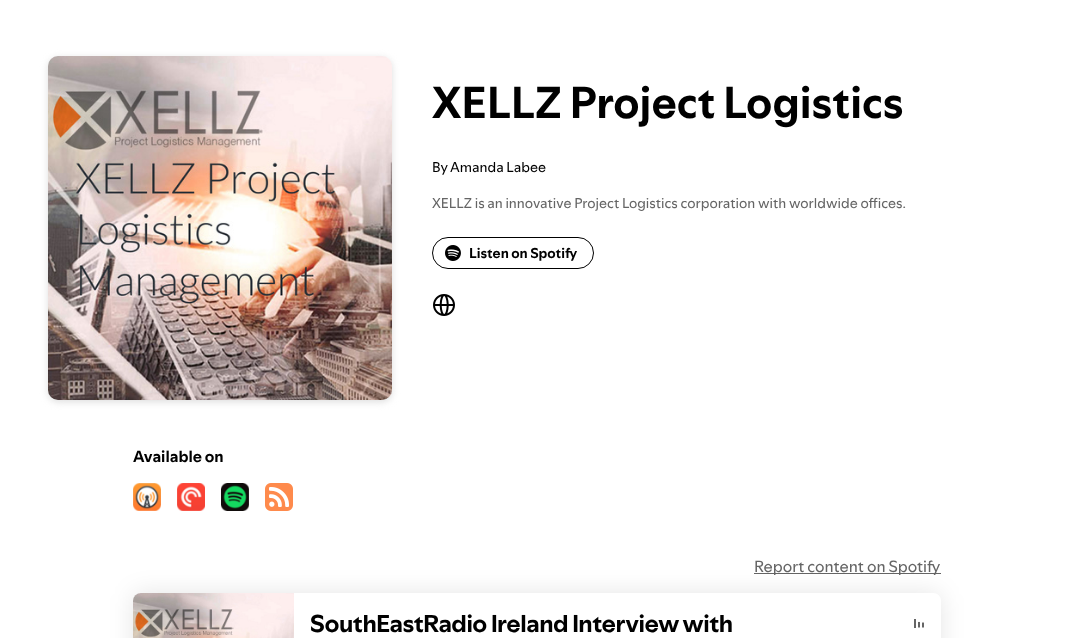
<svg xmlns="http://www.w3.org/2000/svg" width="1073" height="638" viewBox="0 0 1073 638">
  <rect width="100%" height="100%" fill="rgb(255,255,255)"/>
  <rect x="48" y="58" width="344" height="344" rx="10" fill="rgb(222,222,222)" filter="blur(3.5px)"/>
  <image x="48" y="56" width="344" height="344" href="pic1.png"/>
  <text x="432" y="118" font-family="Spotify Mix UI" font-size="44" font-weight="bold" fill="rgb(0,0,0)">XELLZ Project Logistics</text>
  <text x="432" y="172" font-family="Spotify Mix UI" font-size="14" fill="rgb(0,0,0)">By Amanda Labee</text>
  <text x="432" y="208" font-family="Spotify Mix UI" font-size="14" fill="rgb(101,101,101)">XELLZ is an innovative Project Logistics corporation with worldwide offices.</text>
  <rect x="432.5" y="237.5" width="161" height="31" rx="15.5" fill="none" stroke="rgb(0,0,0)"/>
  <image x="445" y="245" width="16" height="16" href="pic2.png"/>
  <text x="469" y="258" font-family="Spotify Mix UI" font-size="14" font-weight="bold" fill="rgb(0,0,0)">Listen on Spotify</text>
  <image x="433" y="294" width="22" height="22" href="pic3.png"/>
  <text x="133" y="462" font-family="Spotify Mix UI" font-size="16" font-weight="bold" fill="rgb(0,0,0)">Available on</text>
  <image x="133" y="483" width="28" height="28" href="pic4.png"/>
  <image x="177" y="483" width="28" height="28" href="pic5.png"/>
  <image x="221" y="483" width="28" height="28" href="pic6.png"/>
  <image x="265" y="483" width="28" height="28" href="pic7.png"/>
  <rect x="754" y="573" width="187" height="1" fill="rgb(101,101,101)"/>
  <text x="754" y="572" font-family="Spotify Mix UI" font-size="16" fill="rgb(101,101,101)">Report content on Spotify</text>
  <rect x="133" y="593" width="808" height="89" rx="8" fill="rgba(0,0,0,0.1)" filter="blur(12px)"/>
  <path d="M141 593H933C937.5 593 941 596.5 941 601V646H133V601C133 596.5 136.5 593 141 593Z" fill="rgb(255,255,255)"/>
  <image x="133" y="593" width="161" height="45" href="pic8.png"/>
  <text x="310" y="632" font-family="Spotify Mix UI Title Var" font-size="24" font-weight="bold" fill="rgb(0,0,0)">SouthEastRadio Ireland Interview with</text>
  <image x="914" y="619" width="10" height="9" href="pic9.png"/>
</svg>
